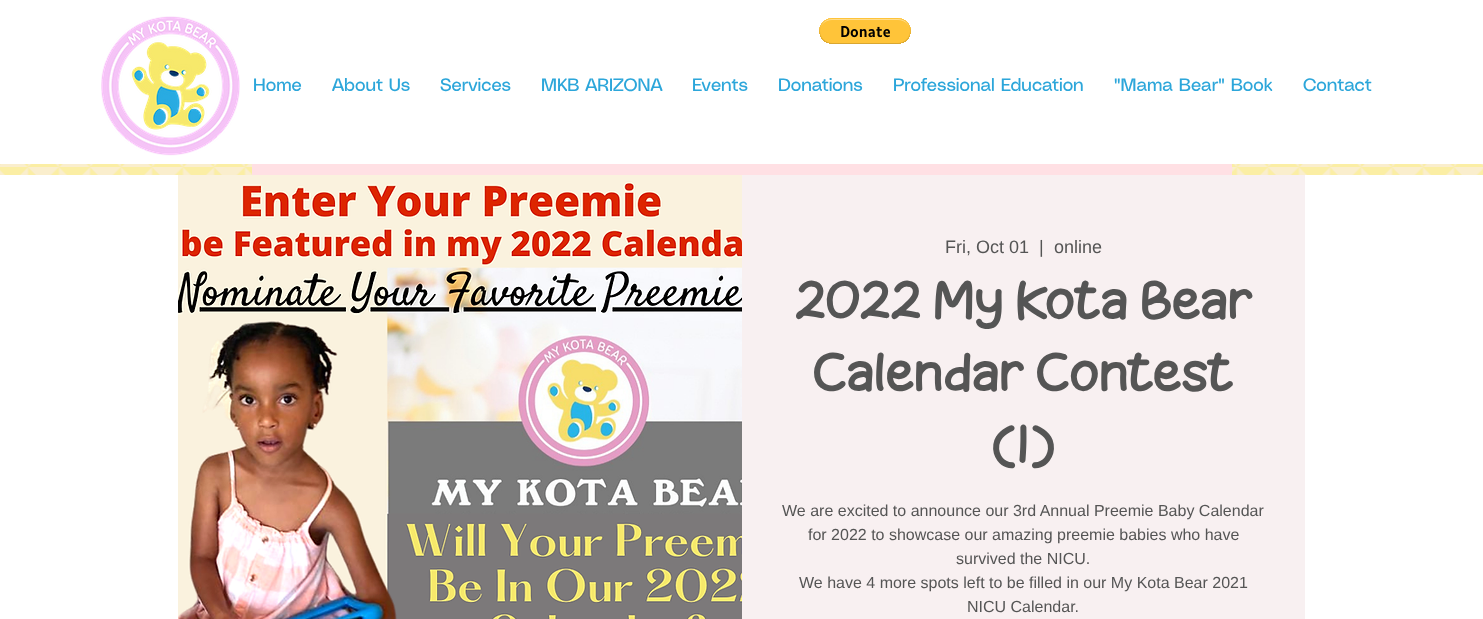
<svg xmlns="http://www.w3.org/2000/svg" width="1483" height="619" viewBox="0 0 1483 619">
  <rect width="100%" height="100%" fill="rgb(250,238,205)"/>
  <rect x="0" y="0" width="1483" height="164" fill="rgb(255,255,255)"/>
  <image x="819" y="18" width="92" height="26" href="pic1.png"/>
  <image x="101" y="16" width="139" height="140" href="pic2.png"/>
  <g font-family="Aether" font-size="18" fill="rgb(44,166,218)">
    <text x="253" y="91">Home</text>
    <text x="332" y="91">About Us</text>
    <text x="440" y="91">Services</text>
    <text x="541" y="91">MKB ARIZONA</text>
    <text x="692" y="91">Events</text>
    <text x="778" y="91">Donations</text>
    <text x="893" y="91">Professional Education</text>
    <text x="1114" y="91">"Mama Bear" Book</text>
    <text x="1303" y="91">Contact</text>
  </g>
  <image x="0" y="164" width="1483" height="11" href="pic4.png"/>
  <rect x="252" y="164" width="980" height="11" fill="rgb(255,224,228)"/>
  <rect x="0" y="175" width="1483" height="444" fill="rgb(255,255,255)"/>
  <image x="178" y="175" width="564" height="444" href="pic3.png"/>
  <rect x="742" y="175" width="563" height="444" fill="rgb(248,240,241)"/>
  <g font-family="Arimo" font-size="18" fill="rgb(85,85,85)">
    <text x="945" y="253">Fri, Oct 01</text>
    <text x="1039" y="253">|</text>
    <text x="1054" y="253">online</text>
  </g>
  <g font-family="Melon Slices" font-size="60" font-weight="bold" fill="rgb(85,85,85)">
    <text x="795" y="319">2022 My Kota Bear</text>
    <text x="813" y="391">Calendar Contest</text>
    <text x="993" y="463">(1)</text>
  </g>
  <g font-family="Arimo" font-size="16" fill="rgb(85,85,85)">
    <text x="782" y="516">We are excited to announce our 3rd Annual Preemie Baby Calendar</text>
    <text x="808" y="540">for 2022 to showcase our amazing preemie babies who have</text>
    <text x="956" y="564">survived the NICU.</text>
    <text x="799" y="588">We have 4 more spots left to be filled in our My Kota Bear 2021</text>
    <text x="967" y="612">NICU Calendar.</text>
  </g>
</svg>
